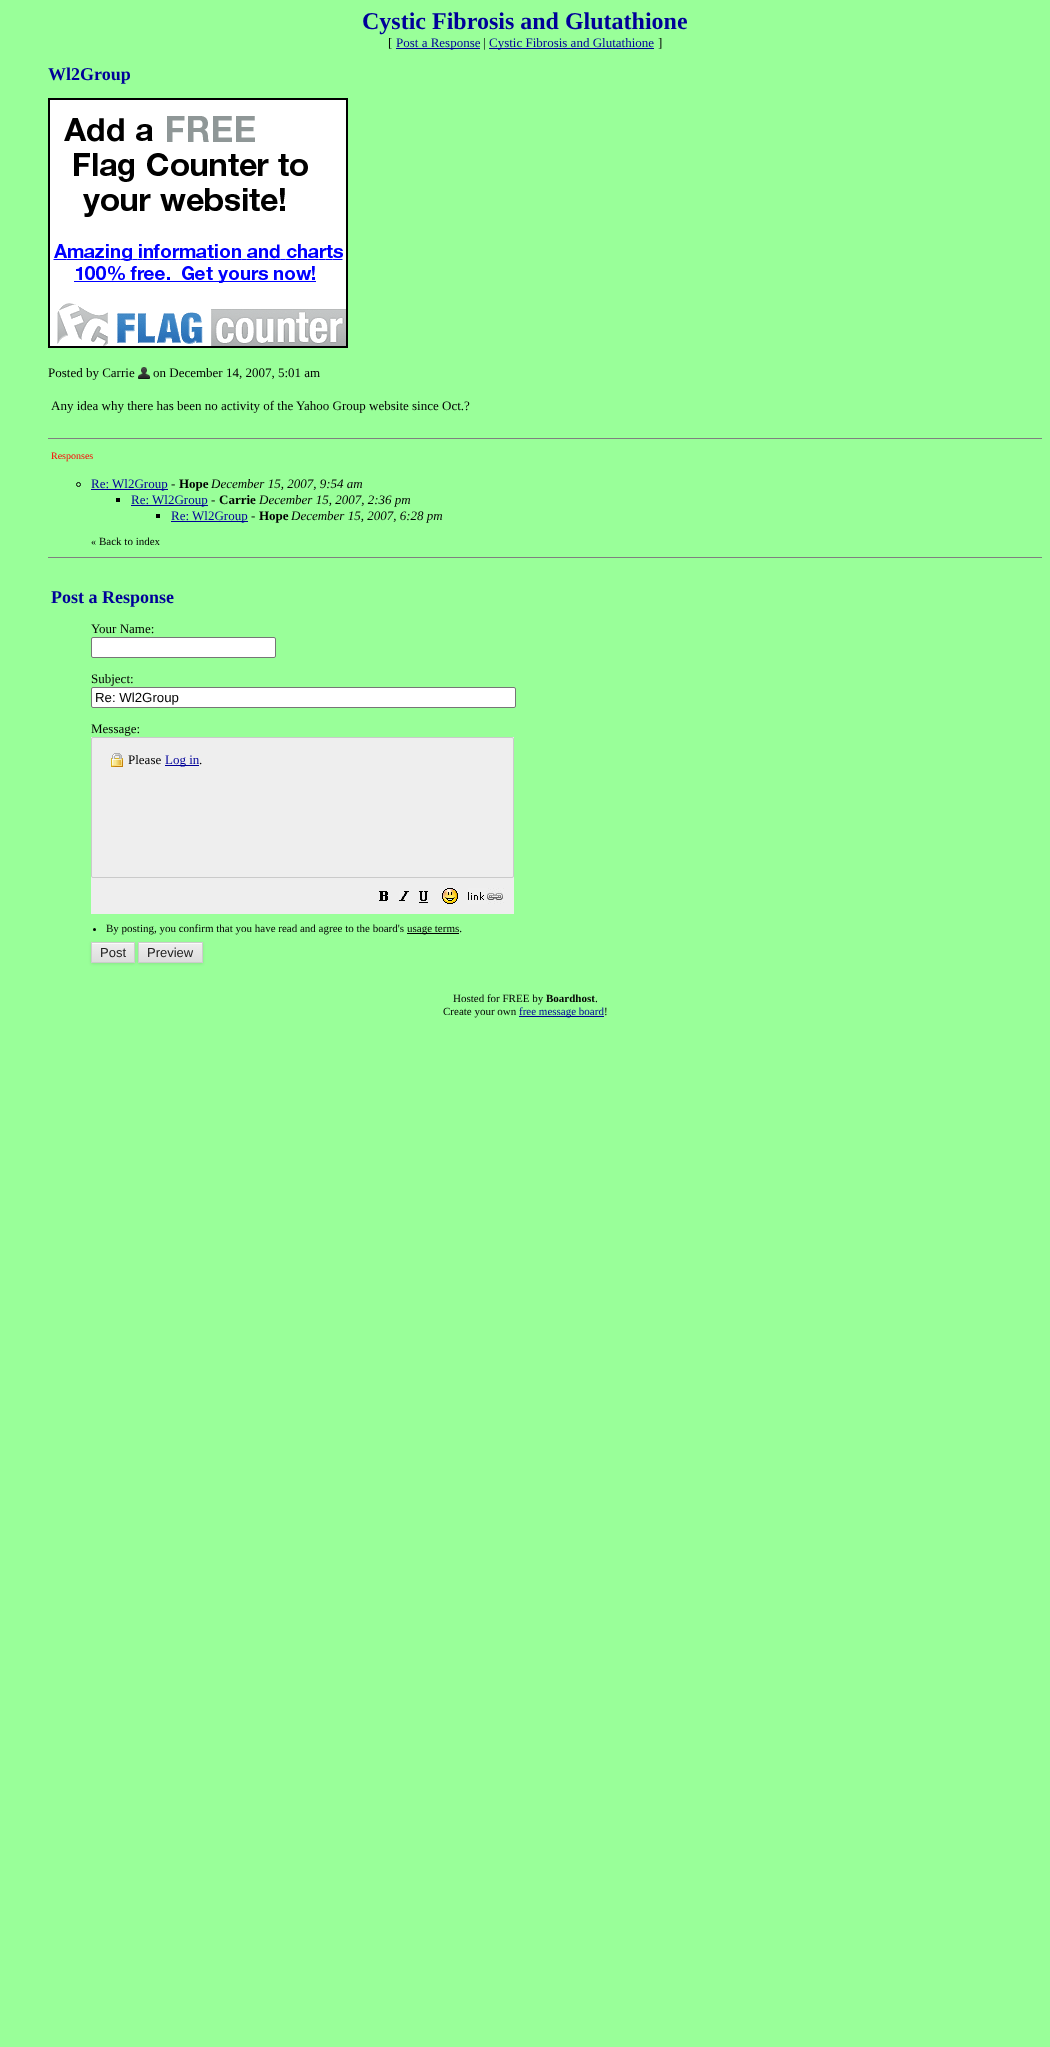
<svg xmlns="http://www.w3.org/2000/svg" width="1050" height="2047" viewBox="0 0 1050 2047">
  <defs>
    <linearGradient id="g1" gradientUnits="userSpaceOnUse" x1="113" y1="943" x2="113" y2="962"><stop offset="0" stop-color="rgb(238,238,238)"/><stop offset="1" stop-color="rgb(221,221,221)"/></linearGradient>
    <linearGradient id="g2" gradientUnits="userSpaceOnUse" x1="171" y1="943" x2="171" y2="962"><stop offset="0" stop-color="rgb(238,238,238)"/><stop offset="1" stop-color="rgb(221,221,221)"/></linearGradient>
  </defs>
  <rect width="100%" height="100%" fill="rgb(153,255,153)"/>
  <text x="362" y="29" font-family="Liberation Serif" font-size="24" font-weight="bold" fill="rgb(0,0,153)">Cystic Fibrosis and Glutathione</text>
  <text x="388" y="47" font-family="Liberation Serif" font-size="13" fill="rgb(0,0,0)">[</text>
  <rect x="396" y="48" width="84" height="1" fill="rgb(0,0,153)"/>
  <text x="396" y="47" font-family="Liberation Serif" font-size="13" fill="rgb(0,0,153)">Post a Response</text>
  <text x="483" y="47" font-family="Liberation Serif" font-size="13" fill="rgb(0,0,0)">|</text>
  <rect x="489" y="48" width="165" height="1" fill="rgb(0,0,153)"/>
  <text x="489" y="47" font-family="Liberation Serif" font-size="13" fill="rgb(0,0,153)">Cystic Fibrosis and Glutathione</text>
  <text x="658" y="47" font-family="Liberation Serif" font-size="13" fill="rgb(0,0,0)">]</text>
  <text x="48" y="80" font-family="Liberation Serif" font-size="18" font-weight="bold" fill="rgb(0,0,153)">Wl2Group</text>
  <image x="48" y="98" width="300" height="250" href="pic1.png"/>
  <text x="48" y="377" font-family="Liberation Serif" font-size="13" fill="rgb(0,0,0)">Posted by Carrie</text>
  <image x="138" y="367" width="12" height="12" href="pic2.png"/>
  <g font-family="Liberation Serif" font-size="13" fill="rgb(0,0,0)">
    <text x="153" y="377">on December 14, 2007, 5:01 am</text>
    <text x="51" y="410">Any idea why there has been no activity of the Yahoo Group website since Oct.?</text>
  </g>
  <rect x="48" y="438" width="994" height="1" fill="rgb(128,128,128)"/>
  <text x="51" y="459" font-family="Liberation Serif" font-size="10" fill="rgb(255,0,0)">Responses</text>
  <circle cx="78.5" cy="484.5" r="2" fill="none" stroke="rgb(0,0,0)"/>
  <rect x="91" y="489" width="77" height="1" fill="rgb(0,0,153)"/>
  <text x="91" y="488" font-family="Liberation Serif" font-size="13" fill="rgb(0,0,153)">Re: Wl2Group</text>
  <text x="171" y="488" font-family="Liberation Serif" font-size="13" fill="rgb(0,0,0)">-</text>
  <text x="179" y="488" font-family="Liberation Serif" font-size="13" font-weight="bold" fill="rgb(0,0,0)">Hope</text>
  <text x="211" y="488" font-family="Liberation Serif" font-size="13" font-style="italic" fill="rgb(0,0,0)">December 15, 2007, 9:54 am</text>
  <rect x="116" y="498" width="4" height="4" fill="rgb(0,0,0)"/>
  <rect x="131" y="505" width="77" height="1" fill="rgb(0,0,153)"/>
  <text x="131" y="504" font-family="Liberation Serif" font-size="13" fill="rgb(0,0,153)">Re: Wl2Group</text>
  <text x="211" y="504" font-family="Liberation Serif" font-size="13" fill="rgb(0,0,0)">-</text>
  <text x="219" y="504" font-family="Liberation Serif" font-size="13" font-weight="bold" fill="rgb(0,0,0)">Carrie</text>
  <text x="259" y="504" font-family="Liberation Serif" font-size="13" font-style="italic" fill="rgb(0,0,0)">December 15, 2007, 2:36 pm</text>
  <rect x="156" y="514" width="4" height="4" fill="rgb(0,0,0)"/>
  <rect x="171" y="521" width="77" height="1" fill="rgb(0,0,153)"/>
  <text x="171" y="520" font-family="Liberation Serif" font-size="13" fill="rgb(0,0,153)">Re: Wl2Group</text>
  <text x="251" y="520" font-family="Liberation Serif" font-size="13" fill="rgb(0,0,0)">-</text>
  <text x="259" y="520" font-family="Liberation Serif" font-size="13" font-weight="bold" fill="rgb(0,0,0)">Hope</text>
  <text x="291" y="520" font-family="Liberation Serif" font-size="13" font-style="italic" fill="rgb(0,0,0)">December 15, 2007, 6:28 pm</text>
  <text x="91" y="545" font-family="Liberation Serif" font-size="10" fill="rgb(0,0,0)">«</text>
  <text x="99" y="545" font-family="Liberation Serif" font-size="11" fill="rgb(0,0,0)">Back to index</text>
  <rect x="48" y="557" width="994" height="1" fill="rgb(128,128,128)"/>
  <text x="51" y="603" font-family="Liberation Serif" font-size="18" font-weight="bold" fill="rgb(0,0,153)">Post a Response</text>
  <text x="91" y="633" font-family="Liberation Serif" font-size="13" fill="rgb(0,0,0)">Your Name:</text>
  <rect x="91.5" y="637.5" width="184" height="20" rx="1.5" fill="rgb(255,255,255)" stroke="rgb(118,118,118)"/>
  <text x="91" y="683" font-family="Liberation Serif" font-size="13" fill="rgb(0,0,0)">Subject:</text>
  <rect x="91.5" y="687.5" width="424" height="20" rx="1.5" fill="rgb(255,255,255)" stroke="rgb(118,118,118)"/>
  <text x="95" y="702" font-family="Liberation Sans" font-size="13.25" fill="rgb(0,0,0)">Re: Wl2Group</text>
  <text x="91" y="733" font-family="Liberation Serif" font-size="13" fill="rgb(0,0,0)">Message:</text>
  <rect x="91" y="737" width="423" height="177" fill="rgb(238,238,238)"/>
  <rect x="91.5" y="737.5" width="422" height="140" rx="1.5" fill="none" stroke="rgb(202,202,202)"/>
  <image x="111" y="753" width="12" height="14" href="pic3.png"/>
  <text x="128" y="764" font-family="Liberation Serif" font-size="13" fill="rgb(0,0,0)">Please</text>
  <rect x="165" y="765" width="34" height="1" fill="rgb(0,0,153)"/>
  <text x="165" y="764" font-family="Liberation Serif" font-size="13" fill="rgb(0,0,153)">Log in</text>
  <text x="199" y="764" font-family="Liberation Serif" font-size="13" fill="rgb(0,0,0)">.</text>
  <image x="379" y="891" width="9" height="10" href="pic4.png"/>
  <image x="399" y="891" width="10" height="10" href="pic5.png"/>
  <image x="419" y="891" width="9" height="12" href="pic6.png"/>
  <image x="442" y="888" width="16" height="16" href="pic7.png"/>
  <image x="468" y="888" width="36" height="16" href="pic8.png"/>
  <circle cx="94.5" cy="929.5" r="1.5" fill="rgb(0,0,0)"/>
  <text x="106" y="932" font-family="Liberation Serif" font-size="11" fill="rgb(0,0,0)">By posting, you confirm that you have read and agree to the board's</text>
  <rect x="407" y="933" width="52" height="1" fill="rgb(0,0,0)"/>
  <text x="407" y="932" font-family="Liberation Serif" font-size="11" fill="rgb(0,0,0)">usage terms.</text>
  <rect x="91" y="943" width="44" height="21" fill="rgba(0,0,0,0.1)" filter="blur(1.5px)"/>
  <rect x="92" y="944" width="42" height="18" fill="url(#g1)"/>
  <rect x="92" y="943" width="42" height="1" fill="rgb(250,250,250)"/>
  <rect x="91.5" y="942.5" width="43" height="20" fill="none" stroke="rgb(204,204,204)"/>
  <text x="100" y="957" font-family="Liberation Sans" font-size="13" fill="rgb(32,32,32)">Post</text>
  <rect x="138" y="943" width="65" height="21" fill="rgba(0,0,0,0.1)" filter="blur(1.5px)"/>
  <rect x="139" y="944" width="63" height="18" fill="url(#g2)"/>
  <rect x="139" y="943" width="63" height="1" fill="rgb(250,250,250)"/>
  <rect x="138.5" y="942.5" width="64" height="20" fill="none" stroke="rgb(204,204,204)"/>
  <text x="147" y="957" font-family="Liberation Sans" font-size="13" fill="rgb(32,32,32)">Preview</text>
  <text x="453" y="1002" font-family="Liberation Serif" font-size="11" fill="rgb(0,0,0)">Hosted for FREE by</text>
  <text x="546" y="1002" font-family="Liberation Serif" font-size="11" font-weight="bold" fill="rgb(0,0,0)">Boardhost</text>
  <g font-family="Liberation Serif" font-size="11" fill="rgb(0,0,0)">
    <text x="595" y="1002">.</text>
    <text x="443" y="1015">Create your own</text>
  </g>
  <rect x="519" y="1016" width="85" height="1" fill="rgb(0,0,153)"/>
  <text x="519" y="1015" font-family="Liberation Serif" font-size="11" fill="rgb(0,0,153)">free message board</text>
  <text x="604" y="1015" font-family="Liberation Serif" font-size="11" fill="rgb(0,0,0)">!</text>
</svg>
